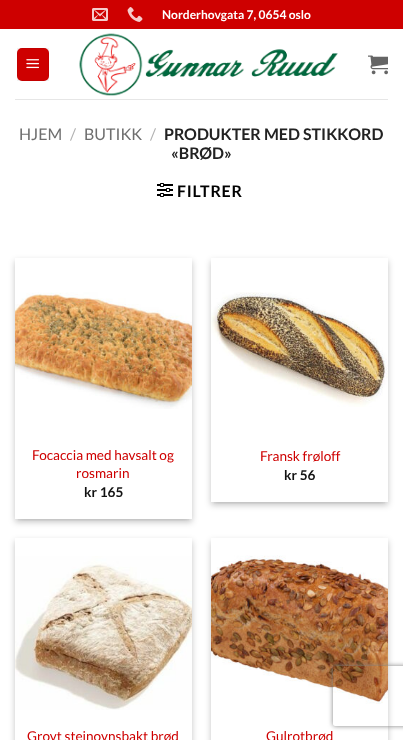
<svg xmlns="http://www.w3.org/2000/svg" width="403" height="740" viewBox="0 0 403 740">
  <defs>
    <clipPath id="clip1"><path d="M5 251H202V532H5ZM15 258H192V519H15Z" clip-rule="evenodd"/></clipPath>
    <clipPath id="clip2"><rect x="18" y="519" width="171" height="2"/></clipPath>
    <clipPath id="clip3"><path d="M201 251H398V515H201ZM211 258H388V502H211Z" clip-rule="evenodd"/></clipPath>
    <clipPath id="clip4"><rect x="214" y="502" width="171" height="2"/></clipPath>
    <clipPath id="clip5"><path d="M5 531H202V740H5ZM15 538H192V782H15Z" clip-rule="evenodd"/></clipPath>
    <clipPath id="clip6"><path d="M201 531H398V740H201ZM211 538H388V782H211Z" clip-rule="evenodd"/></clipPath>
    <clipPath id="clip7"><path d="M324 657H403V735H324ZM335 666H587C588 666 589 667 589 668V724C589 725 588 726 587 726H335C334 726 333 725 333 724V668C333 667 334 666 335 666Z" clip-rule="evenodd"/></clipPath>
  </defs>
  <rect width="100%" height="100%" fill="rgb(255,255,255)"/>
  <rect x="0" y="0" width="403" height="29" fill="rgb(206,0,0)"/>
  <image x="92" y="8" width="16" height="13" href="pic1.png"/>
  <image x="127" y="7" width="16" height="15" href="pic2.png"/>
  <text x="162" y="19" font-family="Lato" font-size="12" font-weight="bold" fill="rgb(255,255,255)">Norderhovgata 7, 0654 oslo</text>
  <rect x="17" y="48" width="32" height="33" rx="5" fill="rgb(206,0,0)"/>
  <rect x="17.5" y="48.5" width="31" height="32" fill="none" stroke="rgba(0,0,0,0.05)"/>
  <image x="26" y="59" width="13" height="10" href="pic3.png"/>
  <image x="79" y="33" width="259" height="63" href="pic4.png"/>
  <image x="368" y="55" width="20" height="20" href="pic5.png"/>
  <rect x="15" y="99" width="373" height="1" fill="rgb(230,230,230)"/>
  <text x="19" y="140" font-family="Lato" font-size="16" fill="rgb(110,110,110)">HJEM</text>
  <text x="70" y="140" font-family="Lato" font-size="16" fill="rgb(178,178,178)">/</text>
  <text x="84" y="140" font-family="Lato" font-size="16" fill="rgb(110,110,110)">BUTIKK</text>
  <text x="150" y="140" font-family="Lato" font-size="16" fill="rgb(178,178,178)">/</text>
  <g font-family="Lato" font-size="16" font-weight="bold" fill="rgb(34,34,34)">
    <text x="164" y="140">PRODUKTER MED STIKKORD</text>
    <text x="171" y="159">«BRØD»</text>
  </g>
  <image x="157" y="183" width="16" height="14" href="pic6.png"/>
  <text x="177" y="197" font-family="Lato" font-size="16" font-weight="bold" letter-spacing="0.75" fill="rgb(0,0,0)">FILTRER</text>
  <g clip-path="url(#clip1)">
    <rect x="15" y="261" width="177" height="261" fill="rgba(0,0,0,0.23)" filter="blur(3px)"/>
  </g>
  <g clip-path="url(#clip2)">
    <rect x="19" y="265" width="169" height="253" fill="rgba(0,0,0,0.16)" filter="blur(3px)"/>
  </g>
  <image x="15" y="292" width="177" height="117" href="pic7.png"/>
  <g font-family="Lato" font-size="13.6" fill="rgb(206,0,0)">
    <text x="32" y="460">Focaccia med havsalt og</text>
    <text x="76" y="478">rosmarin</text>
  </g>
  <text x="84" y="497" font-family="Lato" font-size="13.6" font-weight="bold" fill="rgb(17,17,17)">kr 165</text>
  <g clip-path="url(#clip3)">
    <rect x="211" y="261" width="177" height="244" fill="rgba(0,0,0,0.23)" filter="blur(3px)"/>
  </g>
  <g clip-path="url(#clip4)">
    <rect x="215" y="265" width="169" height="236" fill="rgba(0,0,0,0.16)" filter="blur(3px)"/>
  </g>
  <image x="211" y="292" width="177" height="115" href="pic8.png"/>
  <text x="260" y="461" font-family="Lato" font-size="13.6" fill="rgb(206,0,0)">Fransk frøloff</text>
  <text x="284" y="480" font-family="Lato" font-size="13.6" font-weight="bold" fill="rgb(17,17,17)">kr 56</text>
  <g clip-path="url(#clip5)">
    <rect x="15" y="541" width="177" height="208" fill="rgba(0,0,0,0.23)" filter="blur(3px)"/>
  </g>
  <image x="15" y="556" width="177" height="154" href="pic9.png"/>
  <text x="27" y="741" font-family="Lato" font-size="13.6" fill="rgb(206,0,0)">Grovt steinovnsbakt brød</text>
  <g clip-path="url(#clip6)">
    <rect x="211" y="541" width="177" height="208" fill="rgba(0,0,0,0.23)" filter="blur(3px)"/>
  </g>
  <image x="211" y="555" width="177" height="149" href="pic10.png"/>
  <text x="266" y="741" font-family="Lato" font-size="13.6" fill="rgb(206,0,0)">Gulrotbrød</text>
  <g clip-path="url(#clip7)">
    <rect x="333" y="666" width="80" height="60" rx="2" fill="rgb(128,128,128)" filter="blur(2.5px)"/>
  </g>
</svg>
